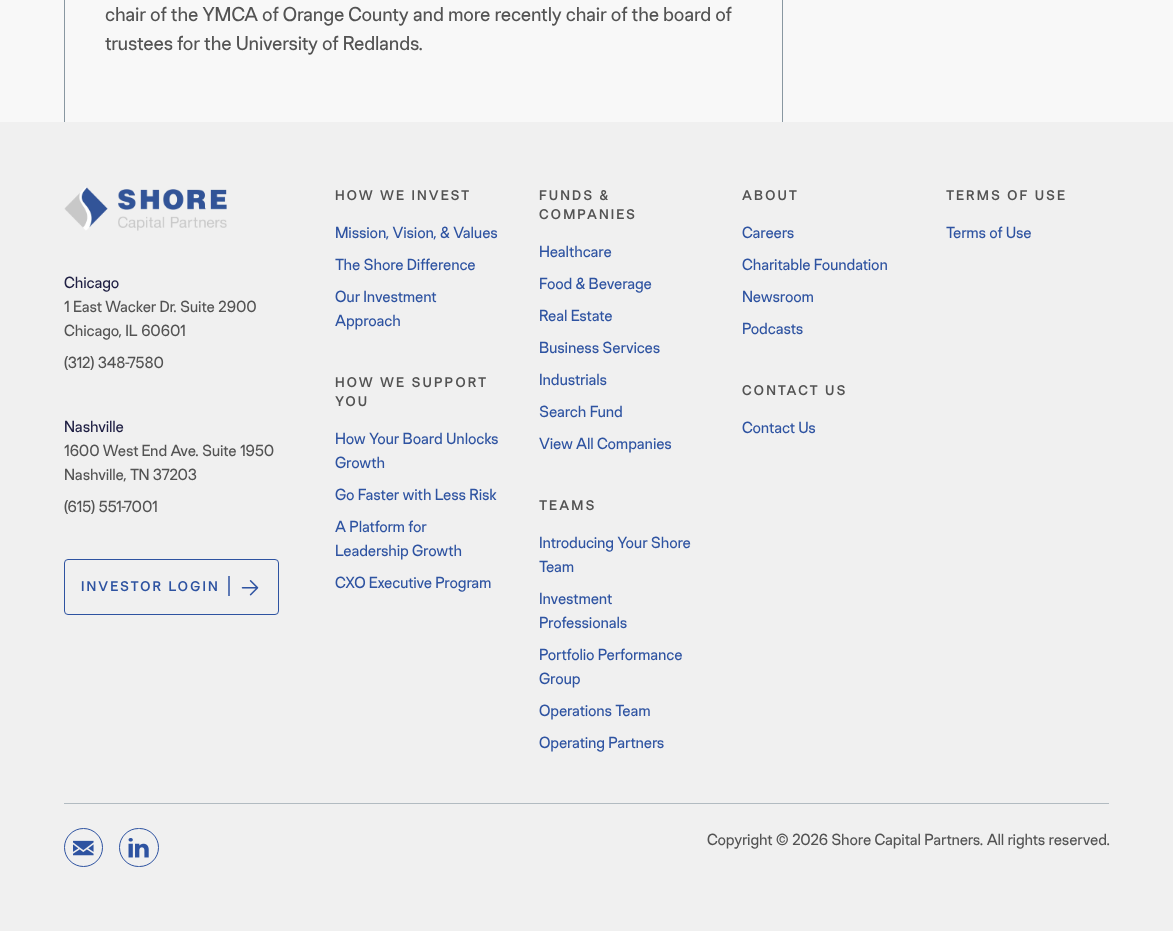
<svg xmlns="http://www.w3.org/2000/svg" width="1173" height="931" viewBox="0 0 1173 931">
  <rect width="100%" height="100%" fill="rgb(240,240,240)"/>
  <rect x="0" y="0" width="1173" height="122" fill="rgb(248,248,248)"/>
  <rect x="64" y="0" width="1" height="122" fill="rgb(137,151,161)"/>
  <g font-family="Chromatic" font-size="20" letter-spacing="-0.2" fill="rgb(83,83,83)">
    <text>
      <tspan x="105" y="21">chair of the YMCA of Orange County and more recently chair of the board of</tspan>
      <tspan x="105" y="50">trustees for the University of Redlands.</tspan>
    </text>
  </g>
  <rect x="782" y="0" width="1" height="122" fill="rgb(137,151,161)"/>
  <image x="64" y="187" width="163" height="44" href="pic1.png"/>
  <text x="64" y="288" font-family="Chromatic" font-size="16" letter-spacing="-0.15" fill="rgb(32,32,68)">Chicago</text>
  <g font-family="Chromatic" font-size="16" letter-spacing="-0.15" fill="rgb(83,83,83)">
    <text>
      <tspan x="64" y="312">1 East Wacker Dr. Suite 2900</tspan>
      <tspan x="64" y="336">Chicago, IL 60601</tspan>
    </text>
    <text x="64" y="368">(312) 348-7580</text>
  </g>
  <text x="64" y="432" font-family="Chromatic" font-size="16" letter-spacing="-0.15" fill="rgb(32,32,68)">Nashville</text>
  <g font-family="Chromatic" font-size="16" letter-spacing="-0.15" fill="rgb(83,83,83)">
    <text>
      <tspan x="64" y="456">1600 West End Ave. Suite 1950</tspan>
      <tspan x="64" y="480">Nashville, TN 37203</tspan>
    </text>
    <text x="64" y="512">(615) 551-7001</text>
  </g>
  <rect x="64.5" y="559.5" width="214" height="55" rx="3.5" fill="none" stroke="rgb(46,83,161)"/>
  <text x="81" y="591" font-family="Chromatic" font-size="14" font-weight="500" letter-spacing="2.1" fill="rgb(46,83,161)">INVESTOR LOGIN</text>
  <rect x="228" y="576" width="2" height="20" fill="rgb(95,122,181)"/>
  <image x="241" y="580" width="18" height="16" href="pic2.png"/>
  <text x="335" y="200" font-family="Chromatic" font-size="14" font-weight="500" letter-spacing="2.1" fill="rgb(83,83,83)">HOW WE INVEST</text>
  <g font-family="Chromatic" font-size="16" letter-spacing="-0.15" fill="rgb(46,83,161)">
    <text x="335" y="238">Mission, Vision, &amp; Values</text>
    <text x="335" y="270">The Shore Difference</text>
    <text>
      <tspan x="335" y="302">Our Investment</tspan>
      <tspan x="335" y="326">Approach</tspan>
    </text>
  </g>
  <g font-family="Chromatic" font-size="14" font-weight="500" letter-spacing="2.1" fill="rgb(83,83,83)">
    <text>
      <tspan x="335" y="387">HOW WE SUPPORT</tspan>
      <tspan x="335" y="406">YOU</tspan>
    </text>
  </g>
  <g font-family="Chromatic" font-size="16" letter-spacing="-0.15" fill="rgb(46,83,161)">
    <text>
      <tspan x="335" y="444">How Your Board Unlocks</tspan>
      <tspan x="335" y="468">Growth</tspan>
    </text>
    <text x="335" y="500">Go Faster with Less Risk</text>
    <text>
      <tspan x="335" y="532">A Platform for</tspan>
      <tspan x="335" y="556">Leadership Growth</tspan>
    </text>
    <text x="335" y="588">CXO Executive Program</text>
  </g>
  <g font-family="Chromatic" font-size="14" font-weight="500" letter-spacing="2.1" fill="rgb(83,83,83)">
    <text>
      <tspan x="539" y="200">FUNDS &amp;</tspan>
      <tspan x="539" y="219">COMPANIES</tspan>
    </text>
  </g>
  <g font-family="Chromatic" font-size="16" letter-spacing="-0.15" fill="rgb(46,83,161)">
    <text x="539" y="257">Healthcare</text>
    <text x="539" y="289">Food &amp; Beverage</text>
    <text x="539" y="321">Real Estate</text>
    <text x="539" y="353">Business Services</text>
    <text x="539" y="385">Industrials</text>
    <text x="539" y="417">Search Fund</text>
    <text x="539" y="449">View All Companies</text>
  </g>
  <text x="539" y="510" font-family="Chromatic" font-size="14" font-weight="500" letter-spacing="2.1" fill="rgb(83,83,83)">TEAMS</text>
  <g font-family="Chromatic" font-size="16" letter-spacing="-0.15" fill="rgb(46,83,161)">
    <text>
      <tspan x="539" y="548">Introducing Your Shore</tspan>
      <tspan x="539" y="572">Team</tspan>
    </text>
    <text>
      <tspan x="539" y="604">Investment</tspan>
      <tspan x="539" y="628">Professionals</tspan>
    </text>
    <text>
      <tspan x="539" y="660">Portfolio Performance</tspan>
      <tspan x="539" y="684">Group</tspan>
    </text>
    <text x="539" y="716">Operations Team</text>
    <text x="539" y="748">Operating Partners</text>
  </g>
  <text x="742" y="200" font-family="Chromatic" font-size="14" font-weight="500" letter-spacing="2.1" fill="rgb(83,83,83)">ABOUT</text>
  <g font-family="Chromatic" font-size="16" letter-spacing="-0.15" fill="rgb(46,83,161)">
    <text x="742" y="238">Careers</text>
    <text x="742" y="270">Charitable Foundation</text>
    <text x="742" y="302">Newsroom</text>
    <text x="742" y="334">Podcasts</text>
  </g>
  <text x="742" y="395" font-family="Chromatic" font-size="14" font-weight="500" letter-spacing="2.1" fill="rgb(83,83,83)">CONTACT US</text>
  <text x="742" y="433" font-family="Chromatic" font-size="16" letter-spacing="-0.15" fill="rgb(46,83,161)">Contact Us</text>
  <text x="946" y="200" font-family="Chromatic" font-size="14" font-weight="500" letter-spacing="2.1" fill="rgb(83,83,83)">TERMS OF USE</text>
  <text x="946" y="238" font-family="Chromatic" font-size="16" letter-spacing="-0.15" fill="rgb(46,83,161)">Terms of Use</text>
  <rect x="64" y="803" width="1045" height="1" fill="rgb(178,187,193)"/>
  <circle cx="83.5" cy="847.5" r="19" fill="none" stroke="rgb(46,83,161)"/>
  <image x="73" y="840" width="21" height="16" href="pic3.png"/>
  <rect x="119.5" y="828.5" width="39" height="38" rx="19" fill="none" stroke="rgb(46,83,161)"/>
  <image x="128" y="838" width="21" height="20" href="pic4.png"/>
  <text x="707" y="845" font-family="Chromatic" font-size="16" letter-spacing="-0.15" fill="rgb(83,83,83)">Copyright © 2026 Shore Capital Partners. All rights reserved.</text>
</svg>
